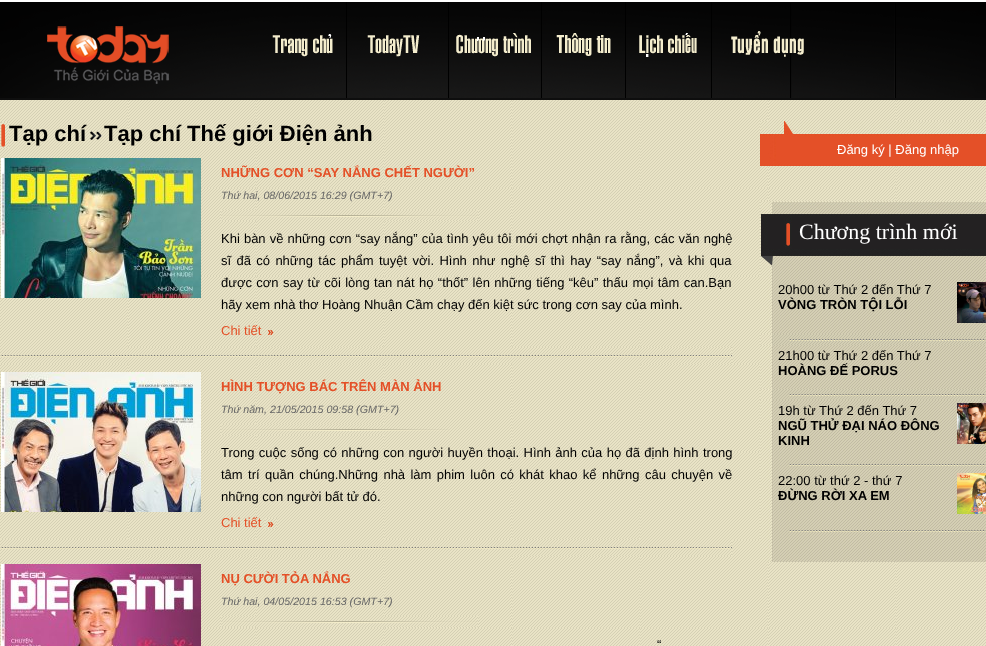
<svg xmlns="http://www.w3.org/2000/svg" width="986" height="646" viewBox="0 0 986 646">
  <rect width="100%" height="100%" fill="rgb(255,255,255)"/>
  <rect x="0" y="98" width="986" height="2" fill="rgb(14,14,14)"/>
  <image x="0" y="2" width="986" height="96" href="pic1.png"/>
  <image x="47" y="26" width="122" height="58" href="pic2.png"/>
  <image x="272" y="34" width="61" height="23" href="pic3.png"/>
  <image x="367" y="35" width="53" height="22" href="pic4.png"/>
  <image x="456" y="33" width="75" height="24" href="pic5.png"/>
  <image x="556" y="33" width="55" height="23" href="pic6.png"/>
  <image x="639" y="33" width="58" height="24" href="pic7.png"/>
  <image x="731" y="31" width="73" height="26" href="pic8.png"/>
  <image x="0" y="100" width="986" height="546" href="pic9.png"/>
  <image x="1" y="122" width="8" height="26" href="pic10.png"/>
  <text x="9" y="141" font-family="Liberation Sans" font-size="22" font-weight="bold" fill="rgb(0,0,0)">Tạp chí</text>
  <image x="90" y="131" width="12" height="9" href="pic11.png"/>
  <text x="104" y="141" font-family="Liberation Sans" font-size="22" font-weight="bold" fill="rgb(0,0,0)">Tạp chí Thế giới Điện ảnh</text>
  <image x="1" y="158" width="200" height="140" href="pic12.png"/>
  <text x="221" y="177" font-family="Liberation Sans" font-size="13" font-weight="bold" fill="rgb(228,80,39)">NHỮNG CƠN “SAY NẮNG CHẾT NGƯỜI”</text>
  <text x="221" y="199" font-family="Liberation Sans" font-size="10.7" font-style="italic" fill="rgb(102,102,102)">Thứ hai, 08/06/2015 16:29 (GMT+7)</text>
  <image x="221" y="210" width="257" height="11" href="pic13.png"/>
  <g font-family="Liberation Sans" font-size="13" fill="rgb(0,0,0)">
    <text>
      <tspan x="221" y="243" word-spacing="0.5">Khi bàn về những cơn “say nắng” của tình yêu tôi mới chợt nhận ra rằng, các văn nghệ</tspan>
      <tspan x="221" y="265" word-spacing="1.75">sĩ đã có những tác phẩm tuyệt vời. Hình như nghệ sĩ thì hay “say nắng”, và khi qua</tspan>
      <tspan x="221" y="287" word-spacing="0.75">được cơn say từ cõi lòng tan nát họ “thốt” lên những tiếng “kêu” thấu mọi tâm can.Bạn</tspan>
      <tspan x="221" y="309">hãy xem nhà thơ Hoàng Nhuận Cầm chạy đến kiệt sức trong cơn say của mình.</tspan>
    </text>
  </g>
  <text x="221" y="335" font-family="Liberation Sans" font-size="13" fill="rgb(228,80,39)">Chi tiết</text>
  <image x="268" y="330" width="6" height="5" href="pic14.png"/>
  <image x="1" y="347" width="731" height="17" href="pic15.png"/>
  <image x="1" y="372" width="200" height="140" href="pic16.png"/>
  <text x="221" y="391" font-family="Liberation Sans" font-size="13" font-weight="bold" fill="rgb(228,80,39)">HÌNH TƯỢNG BÁC TRÊN MÀN ẢNH</text>
  <text x="221" y="413" font-family="Liberation Sans" font-size="10.7" font-style="italic" fill="rgb(102,102,102)">Thứ năm, 21/05/2015 09:58 (GMT+7)</text>
  <image x="221" y="424" width="228" height="11" href="pic17.png"/>
  <g font-family="Liberation Sans" font-size="13" fill="rgb(0,0,0)">
    <text>
      <tspan x="221" y="457" word-spacing="0.75">Trong cuộc sống có những con người huyền thoại. Hình ảnh của họ đã định hình trong</tspan>
      <tspan x="221" y="479" word-spacing="1.75">tâm trí quần chúng.Những nhà làm phim luôn có khát khao kể những câu chuyện về</tspan>
      <tspan x="221" y="501">những con người bất tử đó.</tspan>
    </text>
  </g>
  <text x="221" y="527" font-family="Liberation Sans" font-size="13" fill="rgb(228,80,39)">Chi tiết</text>
  <image x="265" y="518" width="12" height="11" href="pic18.png"/>
  <image x="1" y="539" width="731" height="17" href="pic15.png"/>
  <image x="1" y="564" width="200" height="82" href="pic19.png"/>
  <text x="221" y="583" font-family="Liberation Sans" font-size="13" font-weight="bold" fill="rgb(228,80,39)">NỤ CƯỜI TỎA NẮNG</text>
  <text x="221" y="605" font-family="Liberation Sans" font-size="10.7" font-style="italic" fill="rgb(102,102,102)">Thứ hai, 04/05/2015 16:53 (GMT+7)</text>
  <image x="221" y="616" width="257" height="11" href="pic13.png"/>
  <text x="657" y="649" font-family="Liberation Sans" font-size="13" fill="rgb(0,0,0)">“</text>
  <image x="760" y="121" width="226" height="45" href="pic20.png"/>
  <text x="837" y="154" font-family="Liberation Sans" font-size="13" fill="rgb(255,255,255)">Đăng ký | Đăng nhập</text>
  <image x="760" y="201" width="226" height="361" href="pic21.png"/>
  <image x="761" y="201" width="225" height="66" href="pic22.png"/>
  <text x="799" y="239" font-family="Liberation Serif" font-size="22" fill="rgb(255,255,255)">Chương trình mới</text>
  <text x="778" y="294" font-family="Liberation Sans" font-size="13" fill="rgb(0,0,0)">20h00 từ Thứ 2 đến Thứ 7</text>
  <text x="778" y="309" font-family="Liberation Sans" font-size="13" font-weight="bold" fill="rgb(0,0,0)">VÒNG TRÒN TỘI LỖI</text>
  <image x="957" y="282" width="29" height="41" href="pic23.png"/>
  <image x="760" y="334" width="226" height="11" href="pic24.png"/>
  <text x="778" y="360" font-family="Liberation Sans" font-size="13" fill="rgb(0,0,0)">21h00 từ Thứ 2 đến Thứ 7</text>
  <text x="778" y="375" font-family="Liberation Sans" font-size="13" font-weight="bold" fill="rgb(0,0,0)">HOÀNG ĐẾ PORUS</text>
  <image x="760" y="389" width="226" height="11" href="pic24.png"/>
  <text x="778" y="415" font-family="Liberation Sans" font-size="13" fill="rgb(0,0,0)">19h từ Thứ 2 đến Thứ 7</text>
  <g font-family="Liberation Sans" font-size="13" font-weight="bold" fill="rgb(0,0,0)">
    <text>
      <tspan x="778" y="430">NGŨ THỬ ĐẠI NÁO ĐÔNG</tspan>
      <tspan x="778" y="445">KINH</tspan>
    </text>
  </g>
  <image x="957" y="403" width="29" height="41" href="pic25.png"/>
  <image x="789" y="464" width="196" height="2" href="pic26.png"/>
  <text x="778" y="485" font-family="Liberation Sans" font-size="13" fill="rgb(0,0,0)">22:00 từ thứ 2 - thứ 7</text>
  <text x="778" y="500" font-family="Liberation Sans" font-size="13" font-weight="bold" fill="rgb(0,0,0)">ĐỪNG RỜI XA EM</text>
  <image x="957" y="473" width="29" height="41" href="pic27.png"/>
  <image x="789" y="530" width="196" height="2" href="pic26.png"/>
</svg>
